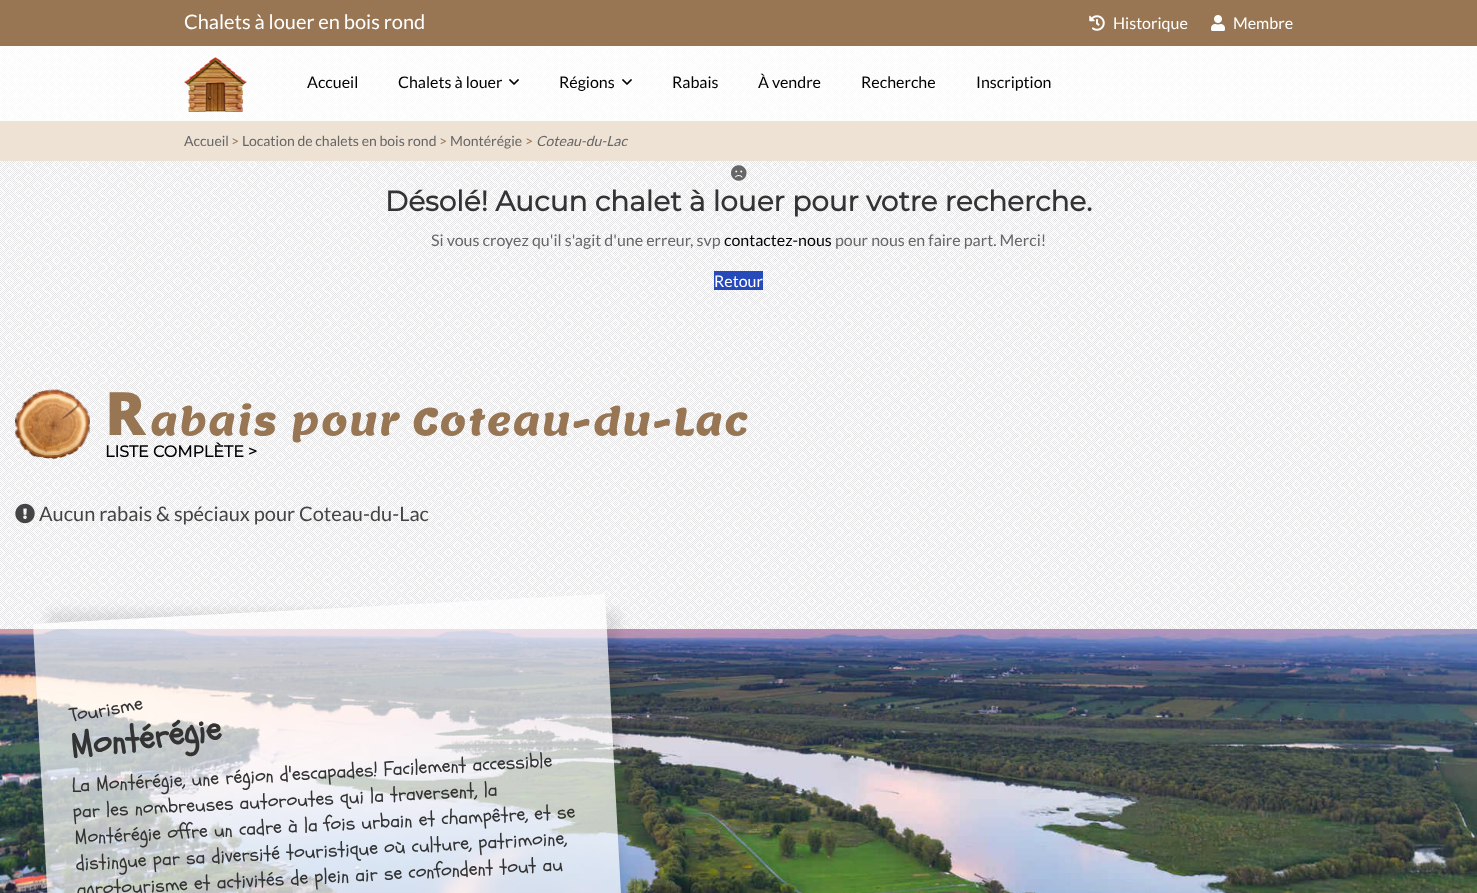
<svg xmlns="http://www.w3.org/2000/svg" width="1477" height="893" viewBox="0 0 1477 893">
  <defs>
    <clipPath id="clip1"><path d="M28 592H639V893H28ZM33 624L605 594L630 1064.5L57.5 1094.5Z" clip-rule="evenodd"/></clipPath>
  </defs>
  <rect width="100%" height="100%" fill="rgb(255,255,255)"/>
  <image x="0" y="46" width="1477" height="583" href="pic1.png"/>
  <rect x="0" y="0" width="1477" height="46" fill="rgb(152,118,84)"/>
  <text x="184" y="29" font-family="Lato" font-size="20" fill="rgb(255,255,255)">Chalets à louer en bois rond</text>
  <image x="1089" y="15" width="16" height="16" href="pic2.png"/>
  <text x="1113" y="29" font-family="Lato" font-size="16" fill="rgb(255,255,255)">Historique</text>
  <image x="1211" y="15" width="14" height="16" href="pic3.png"/>
  <text x="1233" y="29" font-family="Lato" font-size="16" fill="rgb(255,255,255)">Membre</text>
  <rect x="0" y="46" width="1477" height="75" fill="rgba(255,255,255,0.8)"/>
  <image x="184" y="57" width="63" height="55" href="pic4.png"/>
  <g font-family="Lato" font-size="16" fill="rgb(0,0,0)">
    <text x="307" y="88">Accueil</text>
    <text x="398" y="88">Chalets à louer</text>
  </g>
  <image x="509" y="79" width="10" height="6" href="pic5.png"/>
  <text x="559" y="88" font-family="Lato" font-size="16" fill="rgb(0,0,0)">Régions</text>
  <image x="622" y="79" width="10" height="6" href="pic6.png"/>
  <g font-family="Lato" font-size="16" fill="rgb(0,0,0)">
    <text x="672" y="88">Rabais</text>
    <text x="758" y="88">À vendre</text>
    <text x="861" y="88">Recherche</text>
    <text x="976" y="88">Inscription</text>
  </g>
  <rect x="0" y="121" width="1477" height="40" fill="rgb(238,226,212)"/>
  <text x="184" y="146" font-family="Lato" font-size="14" fill="rgb(102,102,102)">Accueil</text>
  <text x="231" y="146" font-family="Lato" font-size="14" fill="rgb(152,118,84)">&gt;</text>
  <text x="242" y="146" font-family="Lato" font-size="14" fill="rgb(102,102,102)">Location de chalets en bois rond</text>
  <text x="439" y="146" font-family="Lato" font-size="14" fill="rgb(152,118,84)">&gt;</text>
  <text x="450" y="146" font-family="Lato" font-size="14" fill="rgb(102,102,102)">Montérégie</text>
  <text x="525" y="146" font-family="Lato" font-size="14" fill="rgb(152,118,84)">&gt;</text>
  <text x="536" y="146" font-family="Lato" font-size="14" font-style="italic" fill="rgb(102,102,102)">Coteau-du-Lac</text>
  <image x="731" y="165" width="16" height="16" href="pic7.png"/>
  <text x="385" y="211" font-family="Montserrat" font-size="28" font-weight="bold" fill="rgb(51,51,51)">Désolé! Aucun chalet à louer pour votre recherche.</text>
  <text x="431" y="246" font-family="Lato" font-size="16" fill="rgb(102,102,102)">Si vous croyez qu'il s'agit d'une erreur, svp</text>
  <text x="724" y="246" font-family="Lato" font-size="16" fill="rgb(0,0,0)">contactez-nous</text>
  <text x="835" y="246" font-family="Lato" font-size="16" fill="rgb(102,102,102)">pour nous en faire part. Merci!</text>
  <rect x="714" y="271" width="49" height="19" fill="rgb(39,74,187)"/>
  <text x="714" y="287" font-family="Lato" font-size="16" fill="rgb(255,255,255)">Retour</text>
  <image x="15" y="389" width="75" height="70" href="pic8.png"/>
  <text x="105" y="435" font-family="Noto Sans" font-size="60" font-weight="900" letter-spacing="1" fill="rgb(152,118,84)">R</text>
  <text x="150" y="435" font-family="Lemon" font-size="38" letter-spacing="1" fill="rgb(152,118,84)">abais pour Coteau-du-Lac</text>
  <text x="105" y="457" font-family="Montserrat" font-size="16" font-weight="bold" fill="rgb(0,0,0)">LISTE COMPLÈTE &gt;</text>
  <image x="15" y="503" width="20" height="21" href="pic9.png"/>
  <text x="39" y="521" font-family="Lato" font-size="20" fill="rgb(68,68,68)">Aucun rabais &amp; spéciaux pour Coteau-du-Lac</text>
  <image x="0" y="629" width="1477" height="264" href="pic10.png"/>
  <g clip-path="url(#clip1)">
    <rect x="47" y="611" width="573" height="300" fill="rgba(0,0,0,0.1)" filter="blur(6px)"/>
  </g>
  <path d="M33 624L605 594L630 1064L58 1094Z" fill="rgba(255,255,255,0.7)"/>
  <text x="71" y="722" transform="rotate(-10 71 722)" font-family="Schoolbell" font-size="20" fill="rgb(51,51,51)">Tourisme</text>
  <text x="72" y="758" transform="rotate(-7 72 758)" font-family="Schoolbell" font-size="35" font-weight="bold" fill="rgb(51,51,51)">Montérégie</text>
  <g font-family="Schoolbell" font-size="20" fill="rgb(51,51,51)">
    <text x="72" y="792" transform="rotate(-3 72 792)">La Montérégie, une région d'escapades! Facilement accessible</text>
    <text x="73" y="818" transform="rotate(-3 73 818)">par les nombreuses autoroutes qui la traversent, la</text>
    <text x="75" y="844" transform="rotate(-3 75 844)">Montérégie offre un cadre à la fois urbain et champêtre, et se</text>
    <text x="76" y="870" transform="rotate(-3 76 870)">distingue par sa diversité touristique où culture, patrimoine,</text>
    <text x="77" y="896" transform="rotate(-3 77 896)">agrotourisme et activités de plein air se confondent tout au</text>
  </g>
</svg>
